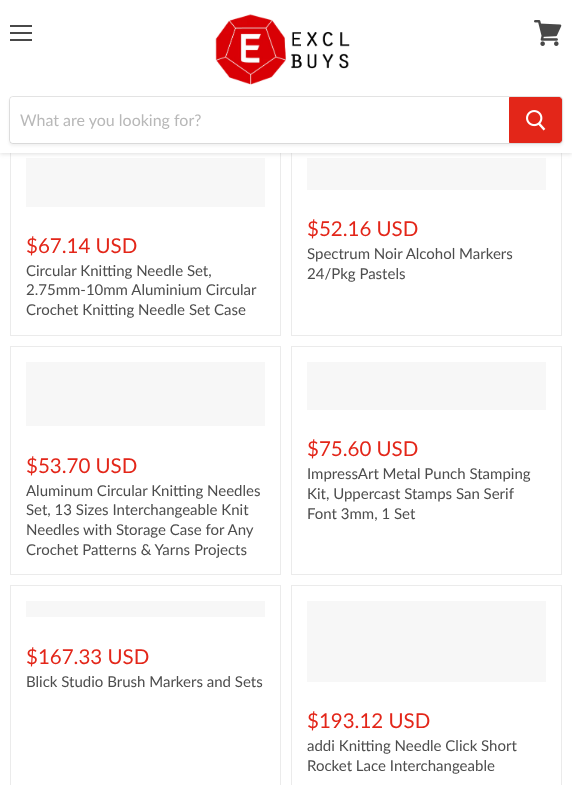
<svg xmlns="http://www.w3.org/2000/svg" width="572" height="785" viewBox="0 0 572 785">
  <rect width="100%" height="100%" fill="rgb(255,255,255)"/>
  <rect x="10.5" y="142.5" width="270" height="193" fill="none" stroke="rgb(235,235,235)"/>
  <rect x="26" y="158" width="239" height="49" fill="rgb(247,247,247)"/>
  <rect x="291.5" y="142.5" width="270" height="193" fill="none" stroke="rgb(235,235,235)"/>
  <rect x="307" y="158" width="239" height="32" fill="rgb(247,247,247)"/>
  <rect x="0" y="1" width="572" height="153" fill="rgba(127,127,127,0.25)" filter="blur(2px)"/>
  <rect x="0" y="0" width="572" height="153" fill="rgb(255,255,255)"/>
  <rect x="10" y="25" width="22" height="2" fill="rgb(72,72,72)"/>
  <rect x="10" y="32" width="22" height="2" fill="rgb(72,72,72)"/>
  <rect x="10" y="39" width="22" height="2" fill="rgb(72,72,72)"/>
  <image x="534" y="20" width="28" height="26" href="pic1.png"/>
  <image x="215" y="14" width="135" height="71" href="pic2.png"/>
  <rect x="9" y="98" width="554" height="48" rx="4" fill="rgba(127,127,127,0.11)" filter="blur(1.5px)"/>
  <rect x="9.5" y="96.5" width="553" height="47" rx="3.5" fill="none" stroke="rgba(127,127,127,0.2)"/>
  <path d="M13 97H509V143H13C11.5 143 10 141.5 10 140V100C10 98.5 11.5 97 13 97Z" fill="rgb(255,255,255)"/>
  <text x="20" y="126" font-family="Lato" font-size="16" fill="rgb(184,184,184)">What are you looking for?</text>
  <path d="M509.5 97.5H559C560.5 97.5 561.5 98.5 561.5 100V140C561.5 141.5 560.5 142.5 559 142.5H509.5Z" fill="rgb(227,38,25)" stroke="rgb(227,38,25)"/>
  <image x="526" y="110" width="20" height="21" href="pic3.png"/>
  <text x="26" y="253" font-family="Lato" font-size="20.5" fill="rgb(227,38,25)">$67.14 USD</text>
  <g font-family="Lato" font-size="15" fill="rgb(77,77,77)">
    <text>
      <tspan x="26" y="276">Circular Knitting Needle Set,</tspan>
      <tspan x="26" y="295">2.75mm-10mm Aluminium Circular</tspan>
      <tspan x="26" y="315">Crochet Knitting Needle Set Case</tspan>
    </text>
  </g>
  <text x="307" y="236" font-family="Lato" font-size="20.5" fill="rgb(227,38,25)">$52.16 USD</text>
  <g font-family="Lato" font-size="15" fill="rgb(77,77,77)">
    <text>
      <tspan x="307" y="259">Spectrum Noir Alcohol Markers</tspan>
      <tspan x="307" y="279">24/Pkg Pastels</tspan>
    </text>
  </g>
  <rect x="10.5" y="346.5" width="270" height="228" fill="none" stroke="rgb(235,235,235)"/>
  <rect x="26" y="362" width="239" height="64" fill="rgb(247,247,247)"/>
  <text x="26" y="473" font-family="Lato" font-size="20.5" fill="rgb(227,38,25)">$53.70 USD</text>
  <g font-family="Lato" font-size="15" fill="rgb(77,77,77)">
    <text>
      <tspan x="26" y="496">Aluminum Circular Knitting Needles</tspan>
      <tspan x="26" y="515">Set, 13 Sizes Interchangeable Knit</tspan>
      <tspan x="26" y="535">Needles with Storage Case for Any</tspan>
      <tspan x="26" y="555">Crochet Patterns &amp; Yarns Projects</tspan>
    </text>
  </g>
  <rect x="291.5" y="346.5" width="270" height="228" fill="none" stroke="rgb(235,235,235)"/>
  <rect x="307" y="362" width="239" height="48" fill="rgb(247,247,247)"/>
  <text x="307" y="456" font-family="Lato" font-size="20.5" fill="rgb(227,38,25)">$75.60 USD</text>
  <g font-family="Lato" font-size="15" fill="rgb(77,77,77)">
    <text>
      <tspan x="307" y="479">ImpressArt Metal Punch Stamping</tspan>
      <tspan x="307" y="499">Kit, Uppercast Stamps San Serif</tspan>
      <tspan x="307" y="519">Font 3mm, 1 Set</tspan>
    </text>
  </g>
  <rect x="10.5" y="585.5" width="270" height="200" fill="none" stroke="rgb(235,235,235)"/>
  <rect x="26" y="601" width="239" height="16" fill="rgb(247,247,247)"/>
  <text x="26" y="664" font-family="Lato" font-size="20.5" fill="rgb(227,38,25)">$167.33 USD</text>
  <text x="26" y="687" font-family="Lato" font-size="15" fill="rgb(77,77,77)">Blick Studio Brush Markers and Sets</text>
  <rect x="291.5" y="585.5" width="270" height="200" fill="none" stroke="rgb(235,235,235)"/>
  <rect x="307" y="601" width="239" height="81" fill="rgb(247,247,247)"/>
  <text x="307" y="728" font-family="Lato" font-size="20.5" fill="rgb(227,38,25)">$193.12 USD</text>
  <g font-family="Lato" font-size="15" fill="rgb(77,77,77)">
    <text>
      <tspan x="307" y="751">addi Knitting Needle Click Short</tspan>
      <tspan x="307" y="771">Rocket Lace Interchangeable</tspan>
    </text>
  </g>
</svg>
